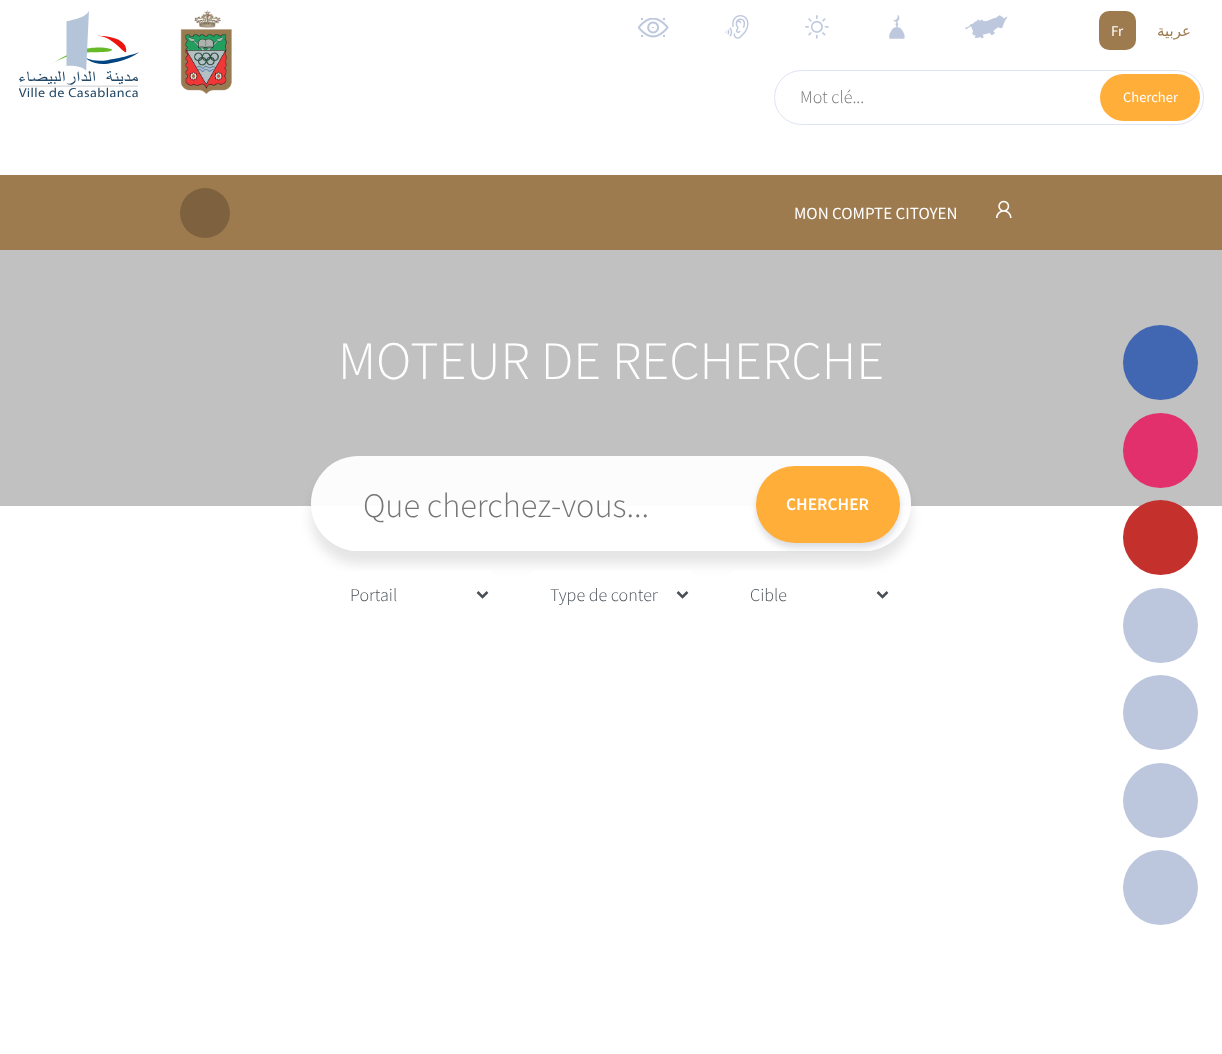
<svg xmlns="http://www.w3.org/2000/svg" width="1222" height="1054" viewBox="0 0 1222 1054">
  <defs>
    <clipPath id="clip1"><path d="M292 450H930V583H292ZM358.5 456H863.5C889.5 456 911 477.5 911 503.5C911 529.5 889.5 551 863.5 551H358.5C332.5 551 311 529.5 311 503.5C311 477.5 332.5 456 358.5 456Z" clip-rule="evenodd"/></clipPath>
    <clipPath id="clip2"><rect x="550" y="583" width="108" height="25"/></clipPath>
  </defs>
  <rect width="100%" height="100%" fill="rgb(255,255,255)"/>
  <image x="19" y="11" width="120" height="87" href="pic1.png"/>
  <image x="180" y="10" width="52" height="84" href="pic2.png"/>
  <image x="638" y="18" width="31" height="20" href="pic3.png"/>
  <image x="725" y="15" width="24" height="24" href="pic4.png"/>
  <image x="805" y="15" width="24" height="24" href="pic5.png"/>
  <image x="889" y="15" width="16" height="24" href="pic6.png"/>
  <image x="965" y="15" width="43" height="24" href="pic7.png"/>
  <rect x="1099" y="11" width="37" height="39" rx="10" fill="rgb(157,123,79)"/>
  <text x="1111" y="36" font-family="Source Sans Pro" font-size="15" fill="rgb(255,255,255)">Fr</text>
  <text x="1191" y="36" font-family="DejaVu Sans" font-size="15" direction="rtl" fill="rgb(157,123,79)">عربية</text>
  <rect x="774.5" y="70.5" width="429" height="54" rx="27" fill="none" stroke="rgb(222,228,243)"/>
  <text x="800" y="103" font-family="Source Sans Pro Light" font-size="18" font-weight="300" fill="rgb(117,117,117)">Mot clé...</text>
  <rect x="1100" y="74" width="100" height="47" rx="23.5" fill="rgb(255,174,58)"/>
  <text x="1123" y="102" font-family="Source Sans Pro" font-size="14.5" fill="rgb(255,255,255)">Chercher</text>
  <rect x="0" y="175" width="1222" height="75" fill="rgb(157,123,79)"/>
  <circle cx="205" cy="213" r="25" fill="rgb(126,98,63)"/>
  <text x="794" y="219" font-family="Source Sans Pro" font-size="17" fill="rgb(255,255,255)">MON COMPTE CITOYEN</text>
  <image x="995" y="200" width="17" height="18" href="pic8.png"/>
  <rect x="0" y="250" width="1222" height="256" fill="rgb(193,193,193)"/>
  <text x="338" y="379" font-family="Source Sans Pro Light" font-size="54" font-weight="300" fill="rgb(255,255,255)">MOTEUR DE RECHERCHE</text>
  <g clip-path="url(#clip1)">
    <rect x="311" y="469" width="600" height="95" rx="47.5" fill="rgba(0,0,0,0.1)" filter="blur(6px)"/>
  </g>
  <rect x="311" y="456" width="600" height="95" rx="47.5" fill="rgba(255,255,255,0.95)"/>
  <text x="363" y="517" font-family="Source Sans Pro Light" font-size="34.25" font-weight="300" fill="rgb(117,117,117)">Que cherchez-vous...</text>
  <rect x="756" y="471" width="144" height="77" rx="38.5" fill="rgba(144,145,162,0.3)" filter="blur(3px)"/>
  <rect x="756" y="466" width="144" height="77" rx="38.5" fill="rgb(255,174,58)"/>
  <text x="786" y="510" font-family="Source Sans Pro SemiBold" font-size="17.5" font-weight="600" fill="rgb(255,255,255)">CHERCHER</text>
  <rect x="330" y="571" width="163" height="47" rx="5" fill="rgb(255,255,255)"/>
  <path d="M477.5 592L482.5 597L487.5 592" fill="none" stroke="rgb(73,80,87)" stroke-width="2.5"/>
  <text x="350" y="601" font-family="Source Sans Pro Light" font-size="18" font-weight="300" fill="rgb(73,80,87)">Portail</text>
  <rect x="530" y="571" width="163" height="47" rx="5" fill="rgb(255,255,255)"/>
  <path d="M677.5 592L682.5 597L687.5 592" fill="none" stroke="rgb(73,80,87)" stroke-width="2.5"/>
  <g clip-path="url(#clip2)">
    <text x="550" y="601" font-family="Source Sans Pro Light" font-size="18" font-weight="300" fill="rgb(73,80,87)">Type de conten</text>
  </g>
  <rect x="730" y="571" width="163" height="47" rx="5" fill="rgb(255,255,255)"/>
  <path d="M877.5 592L882.5 597L887.5 592" fill="none" stroke="rgb(73,80,87)" stroke-width="2.5"/>
  <text x="750" y="601" font-family="Source Sans Pro Light" font-size="18" font-weight="300" fill="rgb(73,80,87)">Cible</text>
  <circle cx="1160.5" cy="362.5" r="37.5" fill="rgb(66,103,178)"/>
  <circle cx="1160.5" cy="450.5" r="37.5" fill="rgb(225,48,108)"/>
  <circle cx="1160.5" cy="537.5" r="37.5" fill="rgb(196,48,43)"/>
  <circle cx="1160.5" cy="625.5" r="37.5" fill="rgb(188,198,221)"/>
  <circle cx="1160.5" cy="712.5" r="37.5" fill="rgb(188,198,221)"/>
  <circle cx="1160.5" cy="800.5" r="37.5" fill="rgb(188,198,221)"/>
  <circle cx="1160.5" cy="887.5" r="37.5" fill="rgb(188,198,221)"/>
</svg>
